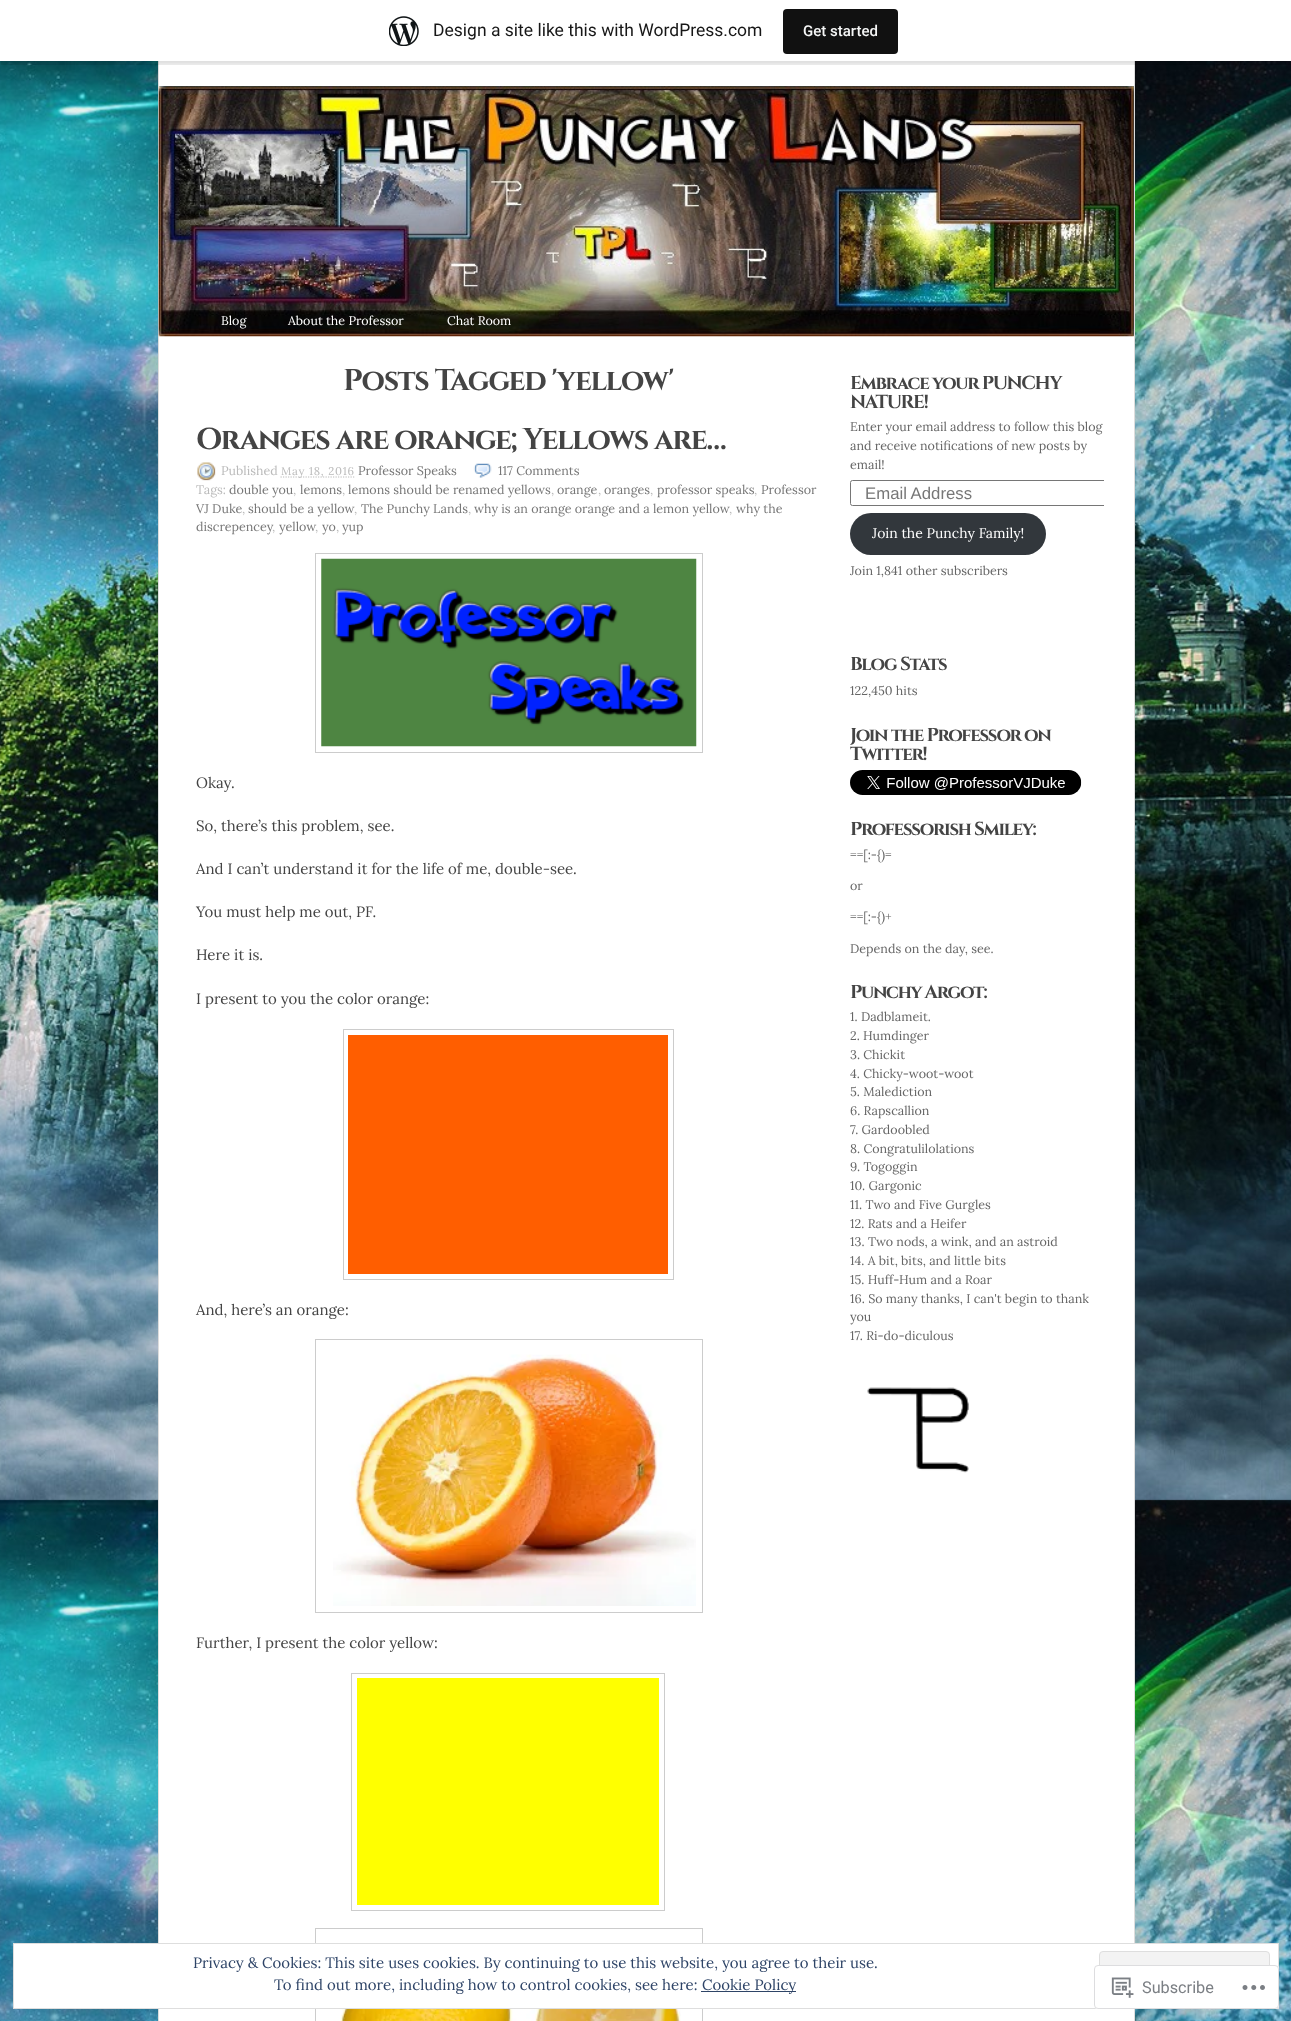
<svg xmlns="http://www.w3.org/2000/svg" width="1291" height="2021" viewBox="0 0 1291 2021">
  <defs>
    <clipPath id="clip1"><rect x="850" y="336" width="254" height="1172"/></clipPath>
  </defs>
  <rect width="100%" height="100%" fill="rgb(255,255,255)"/>
  <image x="0" y="61" width="1291" height="1960" href="pic1.png"/>
  <rect x="159" y="61" width="975" height="1960" fill="rgb(255,255,255)"/>
  <rect x="1134" y="61" width="1" height="1960" fill="rgb(221,221,221)"/>
  <rect x="158" y="61" width="1" height="1960" fill="rgb(221,221,221)"/>
  <rect x="0" y="1" width="1291" height="62" fill="rgba(0,0,0,0.05)" filter="blur(1px)"/>
  <path d="M1 61V65H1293V4H1291V61Z" fill="rgba(0,0,0,0.08)"/>
  <rect x="0" y="0" width="1291" height="61" fill="rgb(255,255,255)"/>
  <image x="389" y="16" width="30" height="30" href="pic2.png"/>
  <text x="433" y="36" font-family="Roboto" font-size="17.5" fill="rgb(23,23,23)">Design a site like this with WordPress.com</text>
  <rect x="783" y="9" width="115" height="45" rx="4" fill="rgb(17,17,17)"/>
  <text x="803" y="36" font-family="Roboto" font-size="15" font-weight="500" fill="rgb(246,247,247)">Get started</text>
  <rect x="159" y="86" width="975" height="250" fill="rgb(51,113,163)"/>
  <image x="158" y="86" width="976" height="251" href="pic3.png"/>
  <g font-family="Lora" font-size="12.5" fill="rgb(255,255,255)">
    <text x="221" y="325">Blog</text>
    <text x="288" y="325">About the Professor</text>
    <text x="447" y="325">Chat Room</text>
  </g>
  <g font-family="Cinzel" font-size="30" font-weight="bold" letter-spacing="-1.25" fill="rgb(68,68,68)">
    <text x="343" y="390">Posts Tagged 'yellow'</text>
    <text x="196" y="449">Oranges are orange; Yellows are…</text>
  </g>
  <image x="197" y="462" width="19" height="19" href="pic4.png"/>
  <text x="221" y="475" font-family="Lora" font-size="12.5" fill="rgb(187,187,187)">Published</text>
  <path d="M280.5 477H355" fill="none" stroke="rgb(187,187,187)" stroke-width="1.2" stroke-dasharray="1.25 1.25"/>
  <text x="281" y="475" font-family="Lora" font-size="11.25" letter-spacing="0.75" fill="rgb(187,187,187)">May 18, 2016</text>
  <text x="358" y="475" font-family="Lora" font-size="12.5" fill="rgb(119,119,119)">Professor Speaks</text>
  <image x="473" y="463" width="19" height="15" href="pic5.png"/>
  <text x="498" y="475" font-family="Lora" font-size="12.5" fill="rgb(119,119,119)">117 Comments</text>
  <text x="196" y="494" font-family="Lora" font-size="12.5" fill="rgb(187,187,187)">Tags:</text>
  <text x="229" y="494" font-family="Lora" font-size="12.5" fill="rgb(119,119,119)">double you</text>
  <text x="293" y="494" font-family="Lora" font-size="12.5" fill="rgb(187,187,187)">,</text>
  <text x="300" y="494" font-family="Lora" font-size="12.5" fill="rgb(119,119,119)">lemons</text>
  <text x="342" y="494" font-family="Lora" font-size="12.5" fill="rgb(187,187,187)">,</text>
  <text x="348" y="494" font-family="Lora" font-size="12.5" fill="rgb(119,119,119)">lemons should be renamed yellows</text>
  <text x="551" y="494" font-family="Lora" font-size="12.5" fill="rgb(187,187,187)">,</text>
  <text x="557" y="494" font-family="Lora" font-size="12.5" fill="rgb(119,119,119)">orange</text>
  <text x="598" y="494" font-family="Lora" font-size="12.5" fill="rgb(187,187,187)">,</text>
  <text x="604" y="494" font-family="Lora" font-size="12.5" fill="rgb(119,119,119)">oranges</text>
  <text x="650" y="494" font-family="Lora" font-size="12.5" fill="rgb(187,187,187)">,</text>
  <text x="657" y="494" font-family="Lora" font-size="12.5" fill="rgb(119,119,119)">professor speaks</text>
  <text x="754" y="494" font-family="Lora" font-size="12.5" fill="rgb(187,187,187)">,</text>
  <g font-family="Lora" font-size="12.5" fill="rgb(119,119,119)">
    <text x="761" y="494">Professor</text>
    <text x="196" y="513">VJ Duke</text>
  </g>
  <text x="242" y="513" font-family="Lora" font-size="12.5" fill="rgb(187,187,187)">,</text>
  <text x="248" y="513" font-family="Lora" font-size="12.5" fill="rgb(119,119,119)">should be a yellow</text>
  <text x="354" y="513" font-family="Lora" font-size="12.5" fill="rgb(187,187,187)">,</text>
  <text x="361" y="513" font-family="Lora" font-size="12.5" fill="rgb(119,119,119)">The Punchy Lands</text>
  <text x="468" y="513" font-family="Lora" font-size="12.5" fill="rgb(187,187,187)">,</text>
  <text x="474" y="513" font-family="Lora" font-size="12.5" fill="rgb(119,119,119)">why is an orange orange and a lemon yellow</text>
  <text x="729" y="513" font-family="Lora" font-size="12.5" fill="rgb(187,187,187)">,</text>
  <g font-family="Lora" font-size="12.5" fill="rgb(119,119,119)">
    <text x="736" y="513">why the</text>
    <text x="196" y="531">discrepencey</text>
  </g>
  <text x="272" y="531" font-family="Lora" font-size="12.5" fill="rgb(187,187,187)">,</text>
  <text x="279" y="531" font-family="Lora" font-size="12.5" fill="rgb(119,119,119)">yellow</text>
  <text x="315" y="531" font-family="Lora" font-size="12.5" fill="rgb(187,187,187)">,</text>
  <text x="322" y="531" font-family="Lora" font-size="12.5" fill="rgb(119,119,119)">yo</text>
  <text x="336" y="531" font-family="Lora" font-size="12.5" fill="rgb(187,187,187)">,</text>
  <text x="342" y="531" font-family="Lora" font-size="12.5" fill="rgb(119,119,119)">yup</text>
  <rect x="315.5" y="553.5" width="387" height="199" fill="none" stroke="rgb(204,204,204)"/>
  <image x="321" y="558" width="376" height="189" href="pic6.png"/>
  <g font-family="Lora" font-size="15" fill="rgb(68,68,68)">
    <text x="196" y="788">Okay.</text>
    <text x="196" y="831">So, there’s this problem, see.</text>
    <text x="196" y="874">And I can’t understand it for the life of me, double-see.</text>
    <text x="196" y="917">You must help me out, PF.</text>
    <text x="196" y="960">Here it is.</text>
    <text x="196" y="1004">I present to you the color orange:</text>
  </g>
  <rect x="343.5" y="1029.5" width="330" height="250" fill="none" stroke="rgb(204,204,204)"/>
  <rect x="348" y="1035" width="320" height="239" fill="rgb(255,94,0)"/>
  <text x="196" y="1315" font-family="Lora" font-size="15" fill="rgb(68,68,68)">And, here’s an orange:</text>
  <rect x="315.5" y="1339.5" width="387" height="273" fill="none" stroke="rgb(204,204,204)"/>
  <image x="333" y="1354" width="363" height="252" href="pic7.png"/>
  <text x="196" y="1648" font-family="Lora" font-size="15" fill="rgb(68,68,68)">Further, I present the color yellow:</text>
  <rect x="351.5" y="1673.5" width="313" height="237" fill="none" stroke="rgb(204,204,204)"/>
  <rect x="357" y="1678" width="302" height="227" fill="rgb(255,255,0)"/>
  <rect x="315.5" y="1928.5" width="387" height="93" fill="none" stroke="rgb(204,204,204)"/>
  <image x="340" y="2009" width="341" height="12" href="pic8.png"/>
  <g font-family="Cinzel" font-size="18.75" font-weight="bold" letter-spacing="-1.25" fill="rgb(68,68,68)">
    <text>
      <tspan x="850" y="389">Embrace your PUNCHY</tspan>
      <tspan x="850" y="408">NATURE!</tspan>
    </text>
  </g>
  <g font-family="Lora" font-size="12.5" fill="rgb(102,102,102)">
    <text>
      <tspan x="850" y="431">Enter your email address to follow this blog</tspan>
      <tspan x="850" y="450">and receive notifications of new posts by</tspan>
      <tspan x="850" y="469">email!</tspan>
    </text>
  </g>
  <g clip-path="url(#clip1)">
    <rect x="850.5" y="480.5" width="270" height="25" rx="2" fill="none" stroke="rgb(118,118,118)"/>
  </g>
  <text x="865" y="499" font-family="Liberation Sans" font-size="16.75" fill="rgb(119,119,119)">Email Address</text>
  <rect x="850" y="513" width="196" height="42" rx="21" fill="rgb(50,55,60)"/>
  <text x="872" y="538" font-family="Lora" font-size="14" fill="rgb(255,255,255)">Join the Punchy Family!</text>
  <text x="850" y="575" font-family="Lora" font-size="12.5" fill="rgb(102,102,102)">Join 1,841 other subscribers</text>
  <text x="850" y="670" font-family="Cinzel" font-size="18.75" font-weight="bold" letter-spacing="-1.25" fill="rgb(68,68,68)">Blog Stats</text>
  <text x="850" y="695" font-family="Lora" font-size="12.5" fill="rgb(102,102,102)">122,450 hits</text>
  <g font-family="Cinzel" font-size="18.75" font-weight="bold" letter-spacing="-1.25" fill="rgb(68,68,68)">
    <text>
      <tspan x="850" y="741">Join the Professor on</tspan>
      <tspan x="850" y="760">Twitter!</tspan>
    </text>
  </g>
  <image x="850" y="770" width="232" height="25" href="pic9.png"/>
  <text x="850" y="835" font-family="Cinzel" font-size="18.75" font-weight="bold" letter-spacing="-1.25" fill="rgb(68,68,68)">Professorish Smiley:</text>
  <g font-family="Lora" font-size="12.5" fill="rgb(102,102,102)">
    <text x="850" y="859">==[:-{)=</text>
    <text x="850" y="890">or</text>
    <text x="850" y="921">==[:-{)+</text>
    <text x="850" y="953">Depends on the day, see.</text>
  </g>
  <text x="850" y="998" font-family="Cinzel" font-size="18.75" font-weight="bold" letter-spacing="-1.25" fill="rgb(68,68,68)">Punchy Argot:</text>
  <g font-family="Lora" font-size="12.5" fill="rgb(102,102,102)">
    <text>
      <tspan x="850" y="1021">1. Dadblameit.</tspan>
      <tspan x="850" y="1040">2. Humdinger</tspan>
      <tspan x="850" y="1059">3. Chickit</tspan>
      <tspan x="850" y="1078">4. Chicky-woot-woot</tspan>
      <tspan x="850" y="1096">5. Malediction</tspan>
      <tspan x="850" y="1115">6. Rapscallion</tspan>
      <tspan x="850" y="1134">7. Gardoobled</tspan>
      <tspan x="850" y="1153">8. Congratulilolations</tspan>
      <tspan x="850" y="1171">9. Togoggin</tspan>
      <tspan x="850" y="1190">10. Gargonic</tspan>
      <tspan x="850" y="1209">11. Two and Five Gurgles</tspan>
      <tspan x="850" y="1228">12. Rats and a Heifer</tspan>
      <tspan x="850" y="1246">13. Two nods, a wink, and an astroid</tspan>
      <tspan x="850" y="1265">14. A bit, bits, and little bits</tspan>
      <tspan x="850" y="1284">15. Huff-Hum and a Roar</tspan>
      <tspan x="850" y="1303">16. So many thanks, I can't begin to thank</tspan>
      <tspan x="850" y="1321">you</tspan>
      <tspan x="850" y="1340">17. Ri-do-diculous</tspan>
    </text>
  </g>
  <image x="867" y="1387" width="102" height="86" href="pic10.png"/>
  <rect x="13.5" y="1943.5" width="1265" height="65" fill="rgb(255,255,255)" stroke="rgb(222,222,222)"/>
  <text x="193" y="1968" font-family="Lora" font-size="15" fill="rgb(46,68,103)">Privacy &amp; Cookies: This site uses cookies. By continuing to use this website, you agree to their use.</text>
  <rect x="1099.5" y="1951.5" width="170" height="48" rx="3.5" fill="rgb(243,243,243)" stroke="rgb(222,222,222)"/>
  <text x="274" y="1990" font-family="Lora" font-size="15" fill="rgb(46,68,103)">To find out more, including how to control cookies, see here:</text>
  <rect x="701" y="1991" width="95" height="1" fill="rgb(46,68,103)"/>
  <text x="702" y="1990" font-family="Lora" font-size="15" fill="rgb(46,68,103)">Cookie Policy</text>
  <rect x="1094" y="1965" width="185" height="44" rx="4" fill="rgba(255,255,255,0.98)"/>
  <rect x="1094.5" y="1965.5" width="184" height="43" rx="3.5" fill="none" stroke="rgba(220,220,222,0.98)"/>
  <image x="1111" y="1977" width="23" height="21" href="pic11.png"/>
  <text x="1142" y="1993" font-family="Roboto" font-size="16.25" fill="rgb(123,127,132)">Subscribe</text>
  <image x="1242" y="1985" width="23" height="5" href="pic12.png"/>
</svg>
